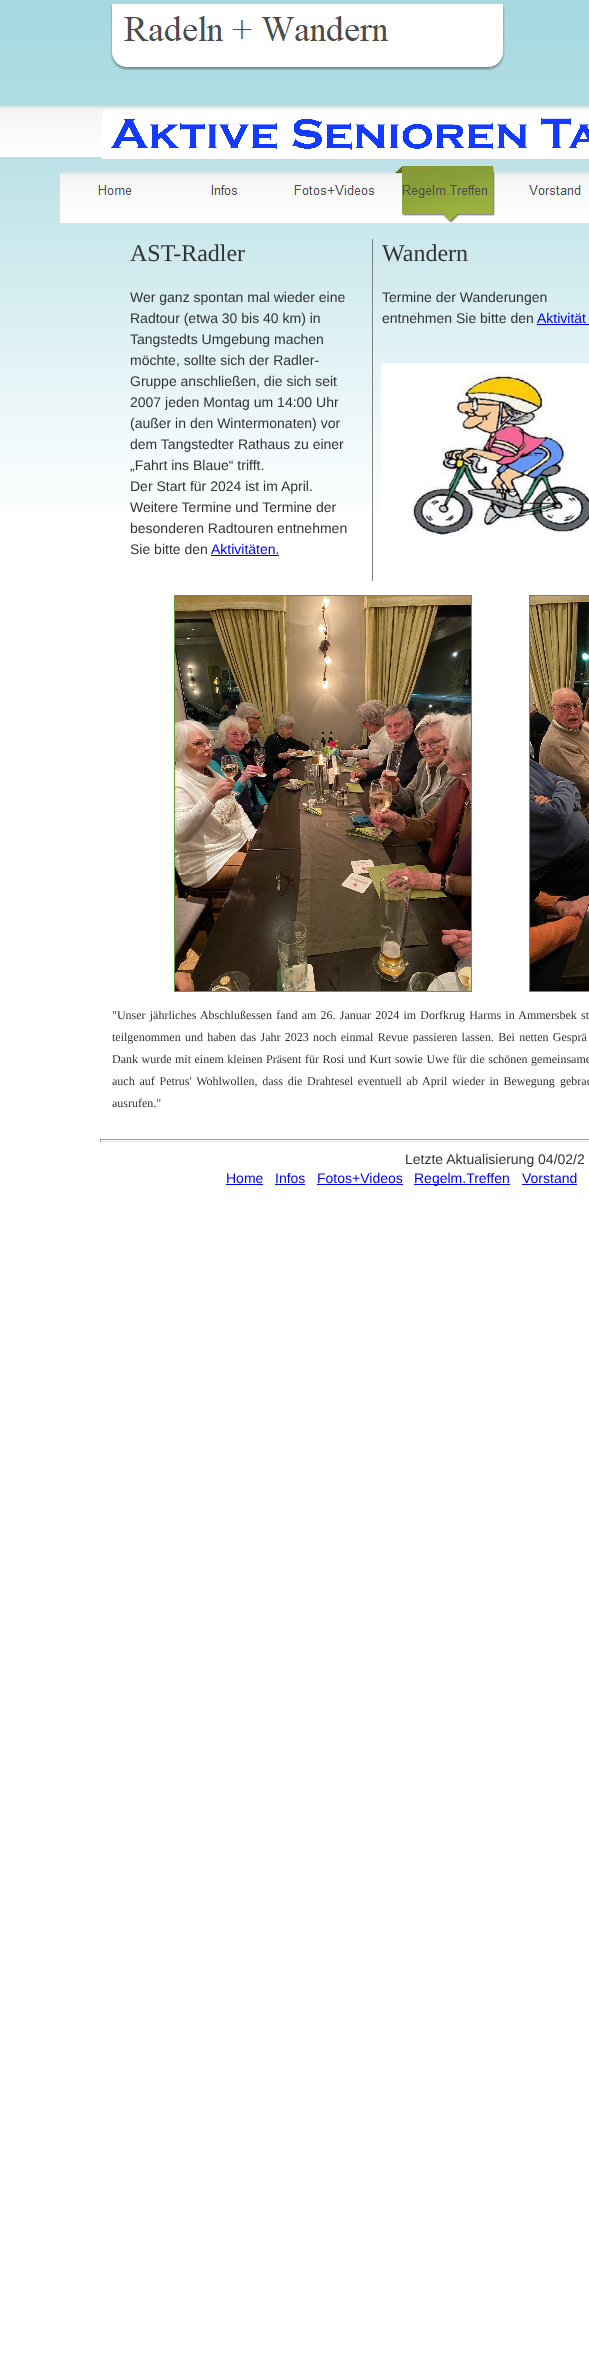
<svg xmlns="http://www.w3.org/2000/svg" width="589" height="2369" viewBox="0 0 589 2369">
  <rect width="100%" height="100%" fill="rgb(255,255,255)"/>
  <image x="0" y="0" width="589" height="510" href="pic1.png"/>
  <image x="110" y="4" width="395" height="67" href="pic2.png"/>
  <image x="102" y="110" width="487" height="49" href="pic3.png"/>
  <image x="60" y="172" width="110" height="51" href="pic4.png"/>
  <image x="170" y="172" width="110" height="51" href="pic5.png"/>
  <image x="280" y="172" width="110" height="51" href="pic6.png"/>
  <image x="390" y="166" width="110" height="57" href="pic7.png"/>
  <image x="500" y="172" width="89" height="51" href="pic8.png"/>
  <text x="130" y="261" font-family="Liberation Serif" font-size="24" fill="rgb(51,51,51)">AST-Radler</text>
  <g font-family="Liberation Sans" font-size="14" fill="rgb(51,51,51)">
    <text>
      <tspan x="130" y="302">Wer ganz spontan mal wieder eine</tspan>
      <tspan x="130" y="323">Radtour (etwa 30 bis 40 km) in</tspan>
      <tspan x="130" y="344">Tangstedts Umgebung machen</tspan>
      <tspan x="130" y="365">möchte, sollte sich der Radler-</tspan>
      <tspan x="130" y="386">Gruppe anschließen, die sich seit</tspan>
      <tspan x="130" y="407">2007 jeden Montag um 14:00 Uhr</tspan>
      <tspan x="130" y="428">(außer in den Wintermonaten) vor</tspan>
      <tspan x="130" y="449">dem Tangstedter Rathaus zu einer</tspan>
      <tspan x="130" y="470">„Fahrt ins Blaue“ trifft.</tspan>
      <tspan x="130" y="491">Der Start für 2024 ist im April.</tspan>
      <tspan x="130" y="512">Weitere Termine und Termine der</tspan>
      <tspan x="130" y="533">besonderen Radtouren entnehmen</tspan>
      <tspan x="130" y="554">Sie bitte den</tspan>
    </text>
  </g>
  <text x="211" y="554" font-family="Liberation Sans" font-size="14" fill="rgb(0,0,238)">Aktivitäten.</text>
  <rect x="211" y="555" width="68" height="1" fill="rgb(0,0,238)"/>
  <rect x="372" y="239" width="1" height="342" fill="rgb(128,128,128)"/>
  <text x="382" y="261" font-family="Liberation Serif" font-size="24" fill="rgb(51,51,51)">Wandern</text>
  <g font-family="Liberation Sans" font-size="14" fill="rgb(51,51,51)">
    <text>
      <tspan x="382" y="302">Termine der Wanderungen</tspan>
      <tspan x="382" y="323">entnehmen Sie bitte den</tspan>
    </text>
  </g>
  <text x="537" y="323" font-family="Liberation Sans" font-size="14" fill="rgb(0,0,238)">Aktivität</text>
  <rect x="537" y="324" width="52" height="1" fill="rgb(0,0,238)"/>
  <image x="381" y="363" width="208" height="174" href="pic9.png"/>
  <rect x="174.5" y="595.5" width="297" height="396" fill="none" stroke="rgb(102,153,51)"/>
  <image x="175" y="596" width="296" height="395" href="pic10.png"/>
  <rect x="529.5" y="595.5" width="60" height="396" fill="none" stroke="rgb(102,153,51)"/>
  <image x="530" y="596" width="59" height="395" href="pic11.png"/>
  <g font-family="Liberation Serif" font-size="12" fill="rgb(51,51,51)">
    <text>
      <tspan x="112" y="1019" word-spacing="1.2">"Unser jährliches Abschlußessen fand am 26. Januar 2024 im Dorfkrug Harms in Ammersbek st</tspan>
      <tspan x="112" y="1041" word-spacing="1.3">teilgenommen und haben das Jahr 2023 noch einmal Revue passieren lassen. Bei netten Gesprä</tspan>
      <tspan x="112" y="1063" word-spacing="0.5">Dank wurde mit einem kleinen Präsent für Rosi und Kurt sowie Uwe für die schönen gemeinsame</tspan>
      <tspan x="112" y="1085" word-spacing="1.75">auch auf Petrus' Wohlwollen, dass die Drahtesel eventuell ab April wieder in Bewegung</tspan>
    </text>
    <text x="560" y="1085" word-spacing="1.75">gebrac</text>
    <text x="112" y="1107">ausrufen."</text>
  </g>
  <rect x="100" y="1139" width="489" height="1" fill="rgb(159,159,159)"/>
  <rect x="100" y="1141" width="489" height="1" fill="rgb(238,238,238)"/>
  <rect x="100" y="1139" width="1" height="3" fill="rgb(159,159,159)"/>
  <text x="405" y="1164" font-family="Liberation Sans" font-size="14" fill="rgb(51,51,51)">Letzte Aktualisierung 04/02/2</text>
  <text x="226" y="1183" font-family="Liberation Sans" font-size="14" fill="rgb(0,0,238)">Home</text>
  <rect x="226" y="1184" width="37" height="1" fill="rgb(0,0,238)"/>
  <text x="275" y="1183" font-family="Liberation Sans" font-size="14" fill="rgb(0,0,238)">Infos</text>
  <rect x="275" y="1184" width="30" height="1" fill="rgb(0,0,238)"/>
  <text x="317" y="1183" font-family="Liberation Sans" font-size="14" fill="rgb(0,0,238)">Fotos+Videos</text>
  <rect x="317" y="1184" width="86" height="1" fill="rgb(0,0,238)"/>
  <rect x="414" y="1184" width="96" height="1" fill="rgb(0,0,238)"/>
  <g font-family="Liberation Sans" font-size="14" fill="rgb(0,0,238)">
    <text x="414" y="1183">Regelm.Treffen</text>
    <text x="522" y="1183">Vorstand</text>
  </g>
  <rect x="522" y="1184" width="55" height="1" fill="rgb(0,0,238)"/>
</svg>
